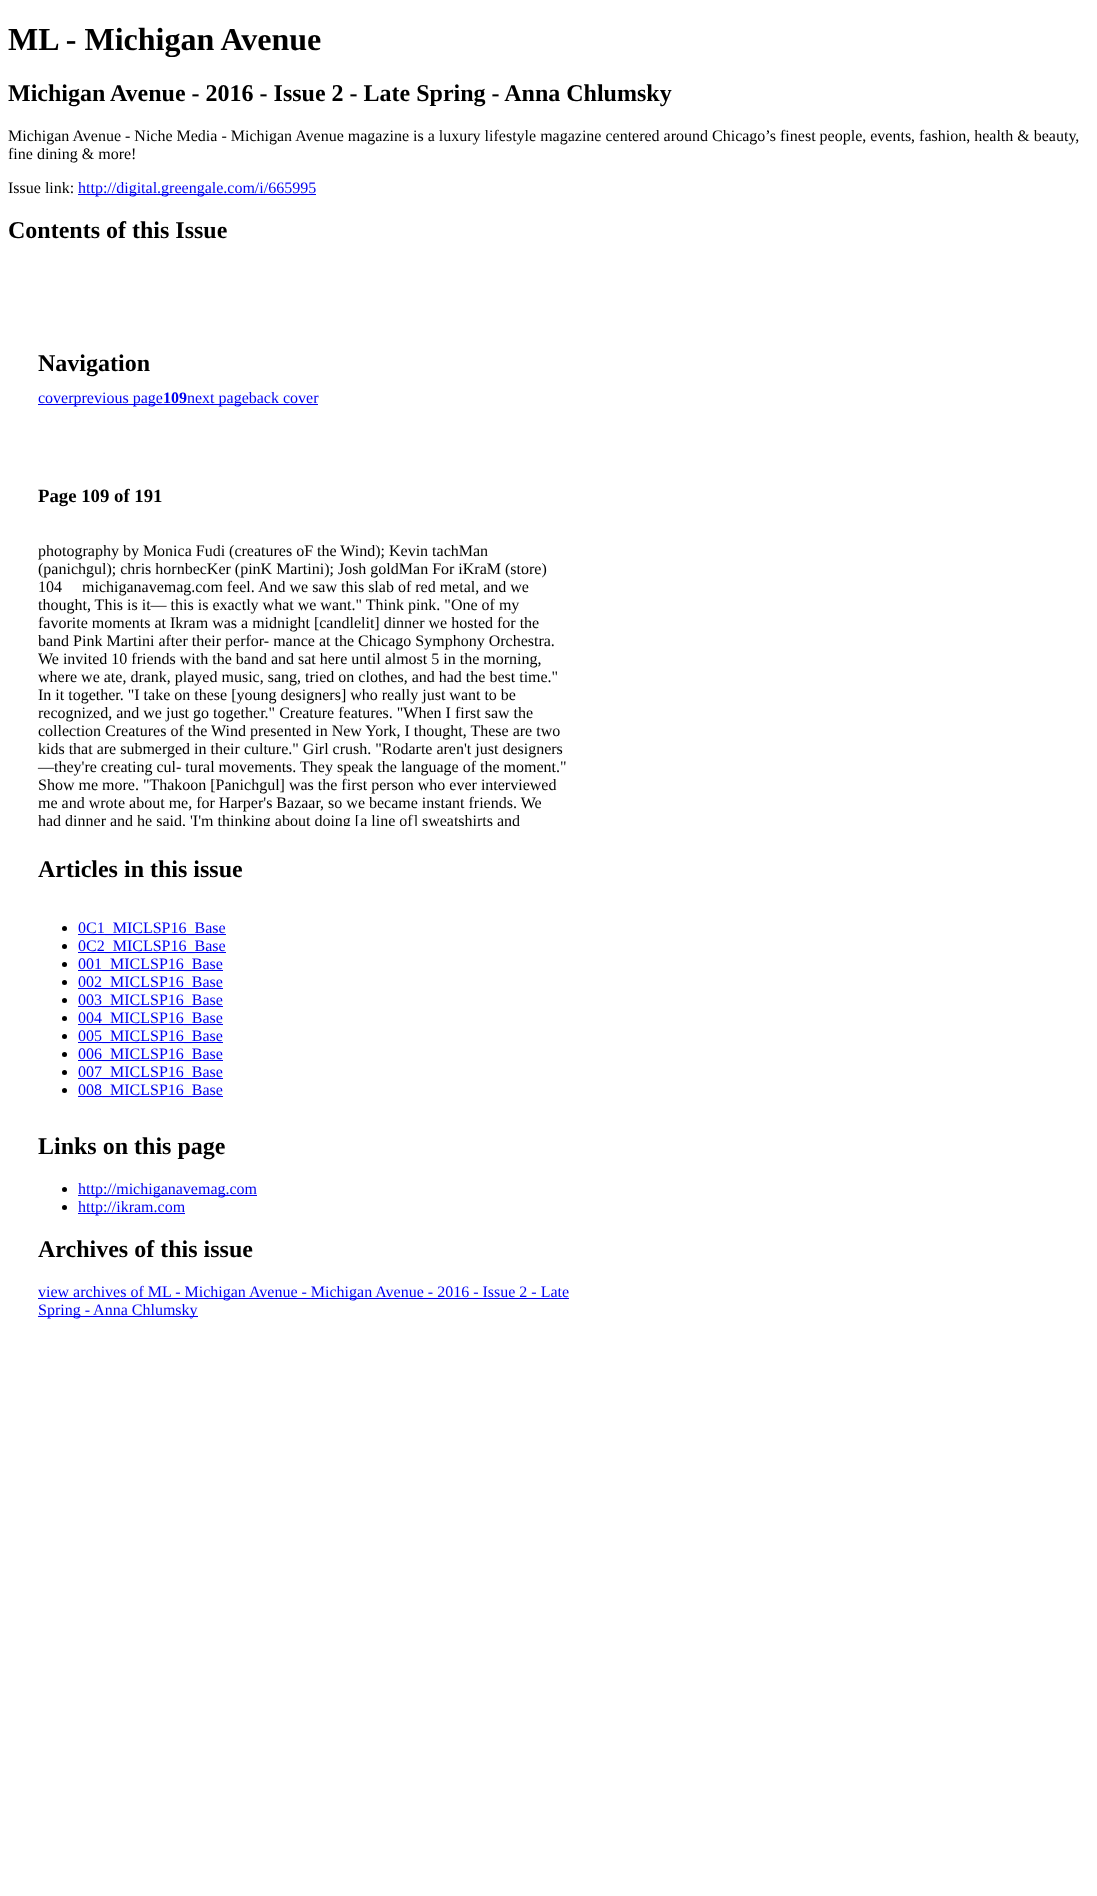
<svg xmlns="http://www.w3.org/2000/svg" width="1097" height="1896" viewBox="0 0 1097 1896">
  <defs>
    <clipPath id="clip1"><rect x="38" y="526" width="550" height="300"/></clipPath>
  </defs>
  <rect width="100%" height="100%" fill="rgb(255,255,255)"/>
  <text x="8" y="50" font-family="Liberation Serif" font-size="32" font-weight="bold" fill="rgb(0,0,0)">ML - Michigan Avenue</text>
  <text x="8" y="101" font-family="Liberation Serif" font-size="24" font-weight="bold" fill="rgb(0,0,0)">Michigan Avenue - 2016 - Issue 2 - Late Spring - Anna Chlumsky</text>
  <g font-family="Liberation Serif" font-size="16" fill="rgb(0,0,0)">
    <text>
      <tspan x="8" y="141">Michigan Avenue - Niche Media - Michigan Avenue magazine is a luxury lifestyle magazine centered around Chicago’s finest people, events, fashion, health &amp; beauty,</tspan>
      <tspan x="8" y="159">fine dining &amp; more!</tspan>
    </text>
    <text x="8" y="193">Issue link:</text>
  </g>
  <rect x="78" y="194" width="238" height="1" fill="rgb(0,0,238)"/>
  <text x="78" y="193" font-family="Liberation Serif" font-size="16" fill="rgb(0,0,238)">http://digital.greengale.com/i/665995</text>
  <g font-family="Liberation Serif" font-size="24" font-weight="bold" fill="rgb(0,0,0)">
    <text x="8" y="238">Contents of this Issue</text>
    <text x="38" y="371">Navigation</text>
  </g>
  <rect x="38" y="404" width="280" height="1" fill="rgb(0,0,238)"/>
  <text x="38" y="403" font-family="Liberation Serif" font-size="16" fill="rgb(0,0,238)">coverprevious page</text>
  <text x="163" y="403" font-family="Liberation Serif" font-size="16" font-weight="bold" fill="rgb(0,0,238)">109</text>
  <text x="187" y="403" font-family="Liberation Serif" font-size="16" fill="rgb(0,0,238)">next pageback cover</text>
  <text x="38" y="502" font-family="Liberation Serif" font-size="18.75" font-weight="bold" fill="rgb(0,0,0)">Page 109 of 191</text>
  <g font-family="Liberation Serif" font-size="16" fill="rgb(0,0,0)">
    <text>
      <tspan x="38" y="556">photography by Monica Fudi (creatures oF the Wind); Kevin tachMan</tspan>
      <tspan x="38" y="574">(panichgul); chris hornbecKer (pinK Martini); Josh goldMan For iKraM (store)</tspan>
      <tspan x="38" y="592">104  michiganavemag.com feel. And we saw this slab of red metal, and we</tspan>
      <tspan x="38" y="610">thought, This is it— this is exactly what we want." Think pink. "One of my</tspan>
      <tspan x="38" y="628">favorite moments at Ikram was a midnight [candlelit] dinner we hosted for the</tspan>
      <tspan x="38" y="646">band Pink Martini after their perfor- mance at the Chicago Symphony Orchestra.</tspan>
      <tspan x="38" y="664">We invited 10 friends with the band and sat here until almost 5 in the morning,</tspan>
      <tspan x="38" y="682">where we ate, drank, played music, sang, tried on clothes, and had the best time."</tspan>
      <tspan x="38" y="700">In it together. "I take on these [young designers] who really just want to be</tspan>
      <tspan x="38" y="718">recognized, and we just go together." Creature features. "When I first saw the</tspan>
      <tspan x="38" y="736">collection Creatures of the Wind presented in New York, I thought, These are two</tspan>
      <tspan x="38" y="754">kids that are submerged in their culture." Girl crush. "Rodarte aren't just designers</tspan>
      <tspan x="38" y="772">—they're creating cul- tural movements. They speak the language of the moment."</tspan>
      <tspan x="38" y="790">Show me more. "Thakoon [Panichgul] was the first person who ever interviewed</tspan>
      <tspan x="38" y="808">me and wrote about me, for Harper's Bazaar, so we became instant friends. We</tspan>
    </text>
  </g>
  <g clip-path="url(#clip1)">
    <text x="38" y="826" font-family="Liberation Serif" font-size="16" fill="rgb(0,0,0)">had dinner and he said, 'I'm thinking about doing [a line of] sweatshirts and</text>
  </g>
  <text x="38" y="877" font-family="Liberation Serif" font-size="24" font-weight="bold" fill="rgb(0,0,0)">Articles in this issue</text>
  <circle cx="64.5" cy="928.5" r="2.5" fill="rgb(0,0,0)"/>
  <rect x="78" y="934" width="148" height="1" fill="rgb(0,0,238)"/>
  <text x="78" y="933" font-family="Liberation Serif" font-size="16" fill="rgb(0,0,238)">0C1_MICLSP16_Base</text>
  <circle cx="64.5" cy="946.5" r="2.5" fill="rgb(0,0,0)"/>
  <rect x="78" y="952" width="148" height="1" fill="rgb(0,0,238)"/>
  <text x="78" y="951" font-family="Liberation Serif" font-size="16" fill="rgb(0,0,238)">0C2_MICLSP16_Base</text>
  <circle cx="64.5" cy="964.5" r="2.5" fill="rgb(0,0,0)"/>
  <rect x="78" y="970" width="145" height="1" fill="rgb(0,0,238)"/>
  <text x="78" y="969" font-family="Liberation Serif" font-size="16" fill="rgb(0,0,238)">001_MICLSP16_Base</text>
  <circle cx="64.5" cy="982.5" r="2.5" fill="rgb(0,0,0)"/>
  <rect x="78" y="988" width="145" height="1" fill="rgb(0,0,238)"/>
  <text x="78" y="987" font-family="Liberation Serif" font-size="16" fill="rgb(0,0,238)">002_MICLSP16_Base</text>
  <circle cx="64.5" cy="1000.5" r="2.5" fill="rgb(0,0,0)"/>
  <rect x="78" y="1006" width="145" height="1" fill="rgb(0,0,238)"/>
  <text x="78" y="1005" font-family="Liberation Serif" font-size="16" fill="rgb(0,0,238)">003_MICLSP16_Base</text>
  <circle cx="64.5" cy="1018.5" r="2.5" fill="rgb(0,0,0)"/>
  <rect x="78" y="1024" width="145" height="1" fill="rgb(0,0,238)"/>
  <text x="78" y="1023" font-family="Liberation Serif" font-size="16" fill="rgb(0,0,238)">004_MICLSP16_Base</text>
  <circle cx="64.5" cy="1036.5" r="2.5" fill="rgb(0,0,0)"/>
  <rect x="78" y="1042" width="145" height="1" fill="rgb(0,0,238)"/>
  <text x="78" y="1041" font-family="Liberation Serif" font-size="16" fill="rgb(0,0,238)">005_MICLSP16_Base</text>
  <circle cx="64.5" cy="1054.5" r="2.5" fill="rgb(0,0,0)"/>
  <rect x="78" y="1060" width="145" height="1" fill="rgb(0,0,238)"/>
  <text x="78" y="1059" font-family="Liberation Serif" font-size="16" fill="rgb(0,0,238)">006_MICLSP16_Base</text>
  <circle cx="64.5" cy="1072.5" r="2.5" fill="rgb(0,0,0)"/>
  <rect x="78" y="1078" width="145" height="1" fill="rgb(0,0,238)"/>
  <text x="78" y="1077" font-family="Liberation Serif" font-size="16" fill="rgb(0,0,238)">007_MICLSP16_Base</text>
  <circle cx="64.5" cy="1090.5" r="2.5" fill="rgb(0,0,0)"/>
  <rect x="78" y="1096" width="145" height="1" fill="rgb(0,0,238)"/>
  <text x="78" y="1095" font-family="Liberation Serif" font-size="16" fill="rgb(0,0,238)">008_MICLSP16_Base</text>
  <text x="38" y="1154" font-family="Liberation Serif" font-size="24" font-weight="bold" fill="rgb(0,0,0)">Links on this page</text>
  <circle cx="64.5" cy="1189.5" r="2.5" fill="rgb(0,0,0)"/>
  <rect x="78" y="1195" width="179" height="1" fill="rgb(0,0,238)"/>
  <text x="78" y="1194" font-family="Liberation Serif" font-size="16" fill="rgb(0,0,238)">http://michiganavemag.com</text>
  <circle cx="64.5" cy="1207.5" r="2.5" fill="rgb(0,0,0)"/>
  <rect x="78" y="1213" width="107" height="1" fill="rgb(0,0,238)"/>
  <text x="78" y="1212" font-family="Liberation Serif" font-size="16" fill="rgb(0,0,238)">http://ikram.com</text>
  <text x="38" y="1257" font-family="Liberation Serif" font-size="24" font-weight="bold" fill="rgb(0,0,0)">Archives of this issue</text>
  <rect x="38" y="1298" width="531" height="1" fill="rgb(0,0,238)"/>
  <text x="38" y="1297" font-family="Liberation Serif" font-size="16" fill="rgb(0,0,238)">view archives of ML - Michigan Avenue - Michigan Avenue - 2016 - Issue 2 - Late</text>
  <rect x="38" y="1316" width="160" height="1" fill="rgb(0,0,238)"/>
  <text x="38" y="1315" font-family="Liberation Serif" font-size="16" fill="rgb(0,0,238)">Spring - Anna Chlumsky</text>
</svg>
